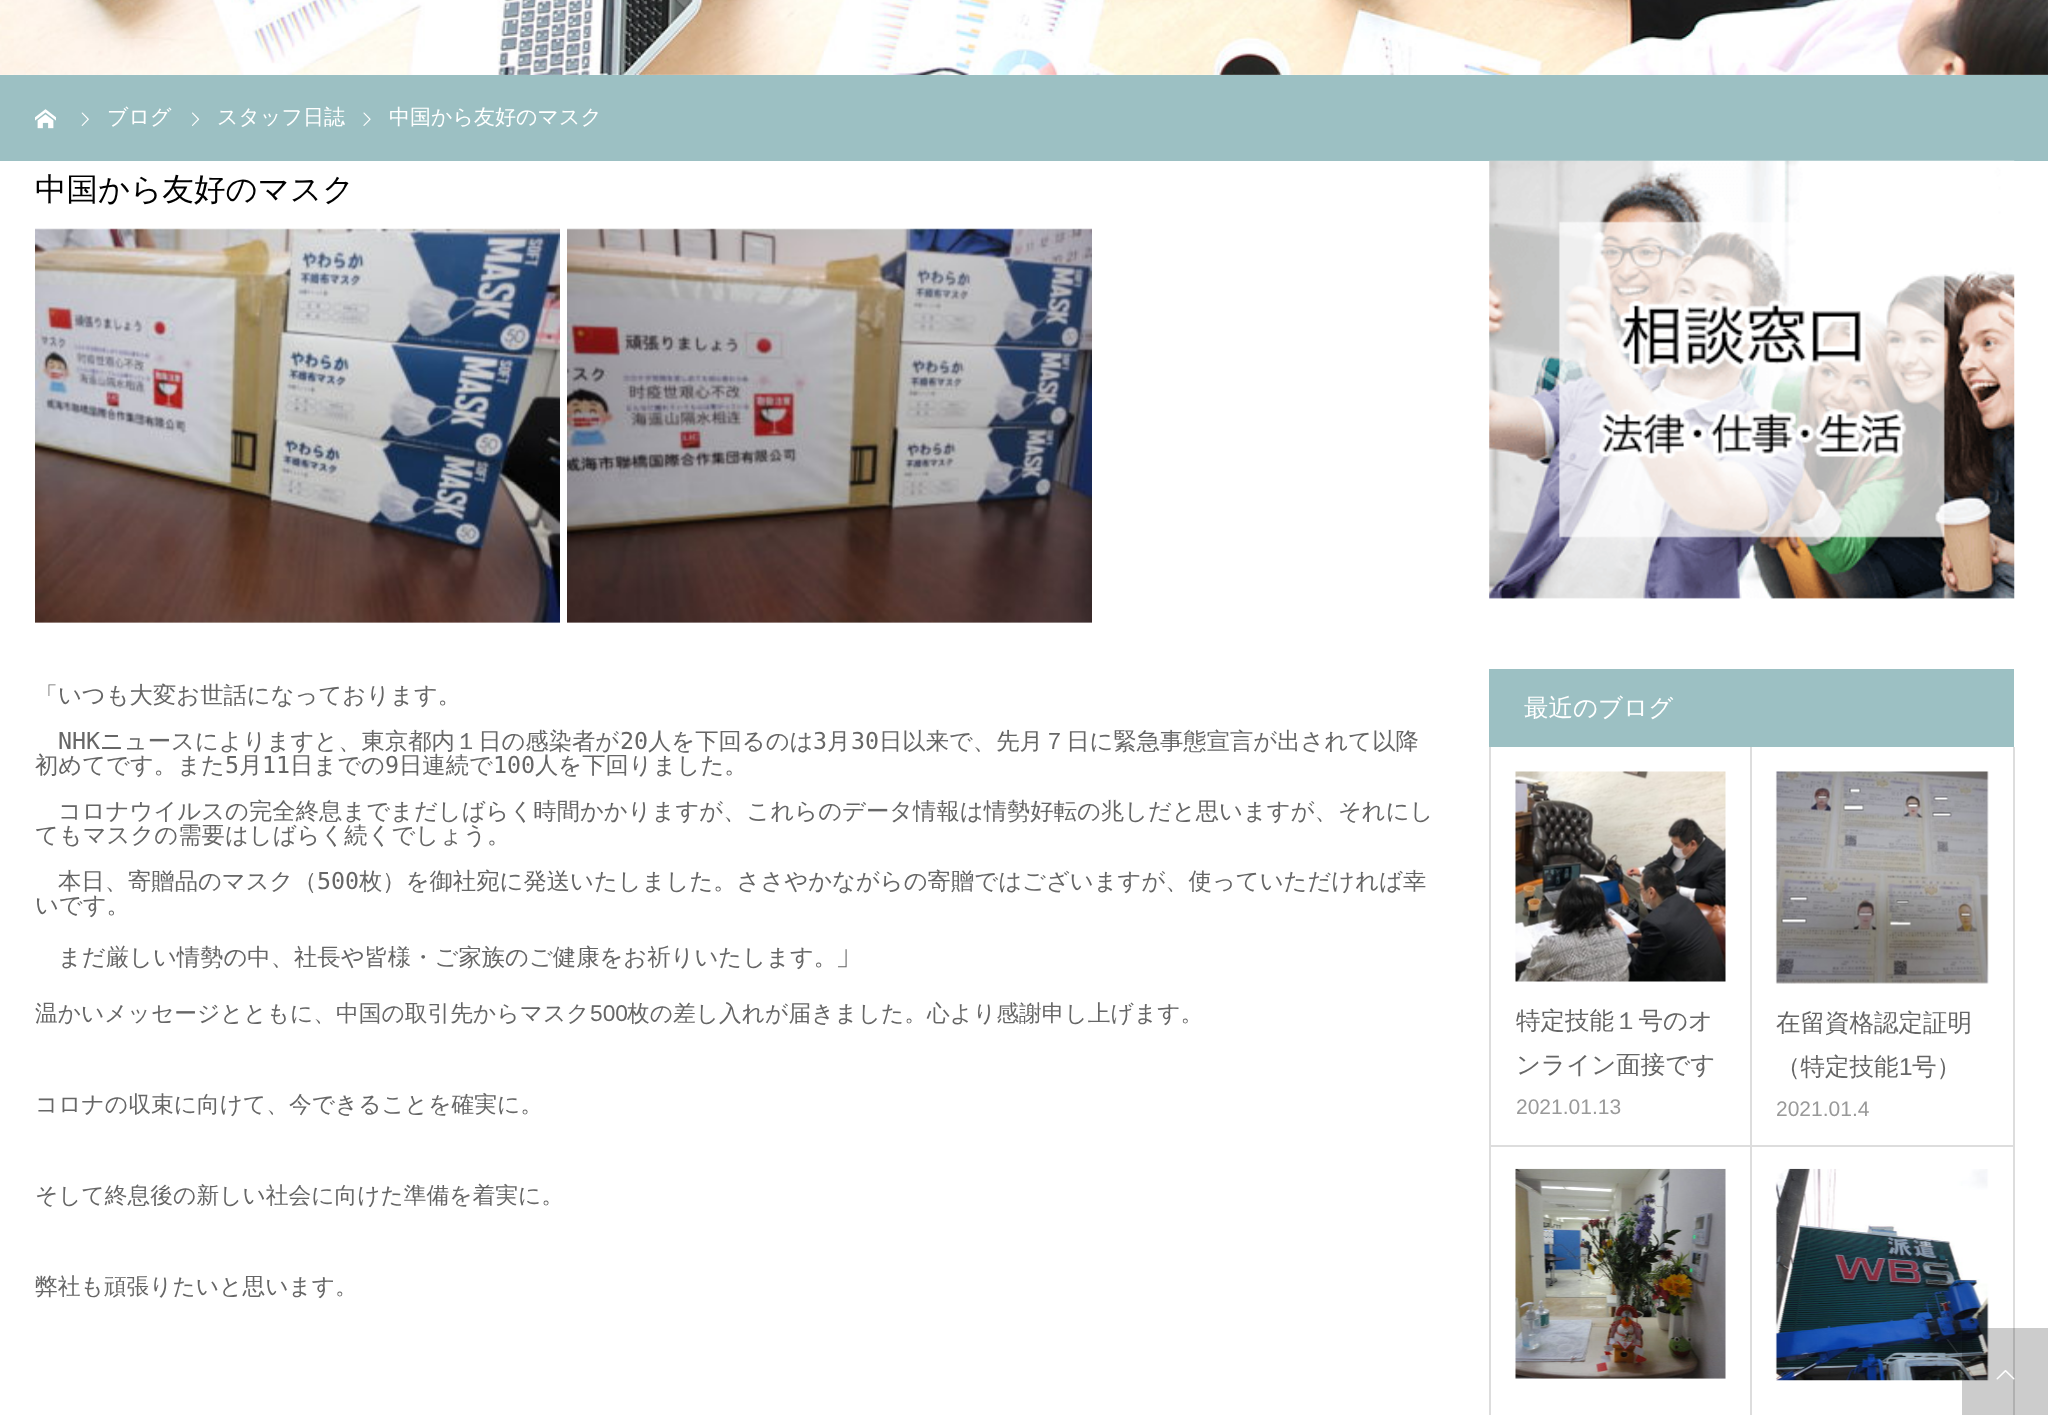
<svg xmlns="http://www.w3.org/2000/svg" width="2048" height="1415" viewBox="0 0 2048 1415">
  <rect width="100%" height="100%" fill="rgb(255,255,255)"/>
  <image x="0" y="0" width="2048" height="75" href="pic1.png"/>
  <rect x="0" y="75" width="2048" height="86" fill="rgb(156,192,195)"/>
  <image x="35" y="109" width="21" height="20" href="pic2.png"/>
  <image x="81" y="112" width="8" height="14" href="pic3.png"/>
  <text x="107" y="124" font-family="WenQuanYi Zen Hei" font-size="21" font-weight="500" fill="rgb(255,255,255)">ブログ</text>
  <image x="192" y="112" width="8" height="14" href="pic4.png"/>
  <text x="217" y="124" font-family="WenQuanYi Zen Hei" font-size="21" font-weight="500" fill="rgb(255,255,255)">スタッフ日誌</text>
  <image x="363" y="112" width="8" height="14" href="pic5.png"/>
  <text x="389" y="124" font-family="WenQuanYi Zen Hei" font-size="21" font-weight="500" fill="rgb(255,255,255)">中国から友好のマスク</text>
  <text x="35" y="200" font-family="WenQuanYi Zen Hei" font-size="31.5" font-weight="500" fill="rgb(0,0,0)">中国から友好のマスク</text>
  <image x="35" y="228" width="525" height="395" href="pic6.png"/>
  <image x="567" y="228" width="525" height="395" href="pic7.png"/>
  <text x="35" y="703" font-family="WenQuanYi Zen Hei" font-size="22.75" font-weight="500" fill="rgb(102,102,102)">「</text>
  <text x="58" y="703" font-family="WenQuanYi Zen Hei" font-size="23.33" font-weight="500" fill="rgb(102,102,102)">いつも大変お世話になっております。</text>
  <text x="58" y="749" font-family="DejaVu Sans Mono" font-size="23.33" fill="rgb(102,102,102)">NHK</text>
  <text x="100" y="749" font-family="WenQuanYi Zen Hei" font-size="23.33" font-weight="500" fill="rgb(102,102,102)">ニュースによりますと、東京都内１日の感染者が</text>
  <text x="620" y="749" font-family="DejaVu Sans Mono" font-size="23.33" fill="rgb(102,102,102)">20</text>
  <text x="648" y="749" font-family="WenQuanYi Zen Hei" font-size="23.33" font-weight="500" fill="rgb(102,102,102)">人を下回るのは</text>
  <text x="813" y="749" font-family="DejaVu Sans Mono" font-size="23.33" fill="rgb(102,102,102)">3</text>
  <text x="827" y="749" font-family="WenQuanYi Zen Hei" font-size="23.33" font-weight="500" fill="rgb(102,102,102)">月</text>
  <text x="851" y="749" font-family="DejaVu Sans Mono" font-size="23.33" fill="rgb(102,102,102)">30</text>
  <g font-family="WenQuanYi Zen Hei" font-size="23.33" font-weight="500" fill="rgb(102,102,102)">
    <text x="879" y="749">日以来で、先月７日に緊急事態宣言が出されて以降</text>
    <text x="35" y="773">初めてです。また</text>
  </g>
  <text x="225" y="773" font-family="DejaVu Sans Mono" font-size="23.33" fill="rgb(102,102,102)">5</text>
  <text x="239" y="773" font-family="WenQuanYi Zen Hei" font-size="23.33" font-weight="500" fill="rgb(102,102,102)">月</text>
  <text x="262" y="773" font-family="DejaVu Sans Mono" font-size="23.33" fill="rgb(102,102,102)">11</text>
  <text x="290" y="773" font-family="WenQuanYi Zen Hei" font-size="23.33" font-weight="500" fill="rgb(102,102,102)">日までの</text>
  <text x="385" y="773" font-family="DejaVu Sans Mono" font-size="23.33" fill="rgb(102,102,102)">9</text>
  <text x="399" y="773" font-family="WenQuanYi Zen Hei" font-size="23.33" font-weight="500" fill="rgb(102,102,102)">日連続で</text>
  <text x="493" y="773" font-family="DejaVu Sans Mono" font-size="23.33" fill="rgb(102,102,102)">100</text>
  <g font-family="WenQuanYi Zen Hei" font-size="23.33" font-weight="500" fill="rgb(102,102,102)">
    <text x="535" y="773">人を下回りました。</text>
    <text x="58" y="819">コロナウイルスの完全終息までまだしばらく時間かかりますが、これらのデータ情報は情勢好転の兆しだと思いますが、それにし</text>
    <text x="35" y="843">てもマスクの需要はしばらく続くでしょう。</text>
    <text x="58" y="889">本日、寄贈品のマスク（</text>
  </g>
  <text x="317" y="889" font-family="DejaVu Sans Mono" font-size="23.33" fill="rgb(102,102,102)">500</text>
  <g font-family="WenQuanYi Zen Hei" font-size="23.33" font-weight="500" fill="rgb(102,102,102)">
    <text x="359" y="889">枚）を御社宛に発送いたしました。ささやかながらの寄贈ではございますが、使っていただければ幸</text>
    <text x="35" y="913">いです。</text>
    <text x="58" y="965">まだ厳しい情勢の中、社長や皆様・ご家族のご健康をお祈りいたします。</text>
  </g>
  <text x="837" y="965" font-family="Noto Serif JP" font-size="28" fill="rgb(102,102,102)">」</text>
  <text x="35" y="1021" font-family="WenQuanYi Zen Hei" font-size="22.75" font-weight="500" fill="rgb(102,102,102)">温かいメッセージとともに、中国の取引先からマスク</text>
  <text x="590" y="1021" font-family="Liberation Sans" font-size="22.75" fill="rgb(102,102,102)">500</text>
  <g font-family="WenQuanYi Zen Hei" font-size="22.75" font-weight="500" fill="rgb(102,102,102)">
    <text x="627" y="1021">枚の差し入れが届きました。心より感謝申し上げます。</text>
    <text x="35" y="1112">コロナの収束に向けて、今できることを確実に。</text>
    <text x="35" y="1203">そして終息後の新しい社会に向けた準備を着実に。</text>
    <text x="35" y="1294">弊社も頑張りたいと思います。</text>
  </g>
  <image x="1489" y="160" width="526" height="439" href="pic8.png"/>
  <rect x="1489" y="669" width="525" height="78" fill="rgb(156,192,195)"/>
  <text x="1524" y="716" font-family="WenQuanYi Zen Hei" font-size="24.5" font-weight="500" fill="rgb(255,255,255)">最近のブログ</text>
  <rect x="2013" y="747" width="2" height="668" fill="rgb(221,221,221)"/>
  <rect x="1489" y="747" width="2" height="668" fill="rgb(221,221,221)"/>
  <rect x="1750" y="747" width="2" height="399" fill="rgb(221,221,221)"/>
  <rect x="1491" y="1145" width="522" height="2" fill="rgb(221,221,221)"/>
  <image x="1515" y="771" width="211" height="211" href="pic9.png"/>
  <g font-family="WenQuanYi Zen Hei" font-size="24.5" font-weight="500" fill="rgb(102,102,102)">
    <text>
      <tspan x="1516" y="1029">特定技能１号のオ</tspan>
      <tspan x="1516" y="1073">ンライン面接です</tspan>
    </text>
  </g>
  <text x="1516" y="1114" font-family="Liberation Sans" font-size="21" fill="rgb(153,153,153)">2021.01.13</text>
  <image x="1775" y="771" width="214" height="213" href="pic10.png"/>
  <g font-family="WenQuanYi Zen Hei" font-size="24.5" font-weight="500" fill="rgb(102,102,102)">
    <text>
      <tspan x="1776" y="1031">在留資格認定証明</tspan>
      <tspan x="1776" y="1075">（特定技能</tspan>
    </text>
  </g>
  <text x="1899" y="1075" font-family="Liberation Sans" font-size="24.5" fill="rgb(102,102,102)">1</text>
  <text x="1912" y="1075" font-family="WenQuanYi Zen Hei" font-size="24.5" font-weight="500" fill="rgb(102,102,102)">号）</text>
  <text x="1776" y="1116" font-family="Liberation Sans" font-size="21" fill="rgb(153,153,153)">2021.01.4</text>
  <rect x="1750" y="1145" width="2" height="270" fill="rgb(221,221,221)"/>
  <image x="1515" y="1168" width="211" height="211" href="pic11.png"/>
  <image x="1775" y="1168" width="214" height="213" href="pic12.png"/>
  <rect x="1962" y="1328" width="86" height="87" fill="rgba(0,0,0,0.2)"/>
  <image x="1996" y="1370" width="19" height="10" href="pic13.png"/>
</svg>
